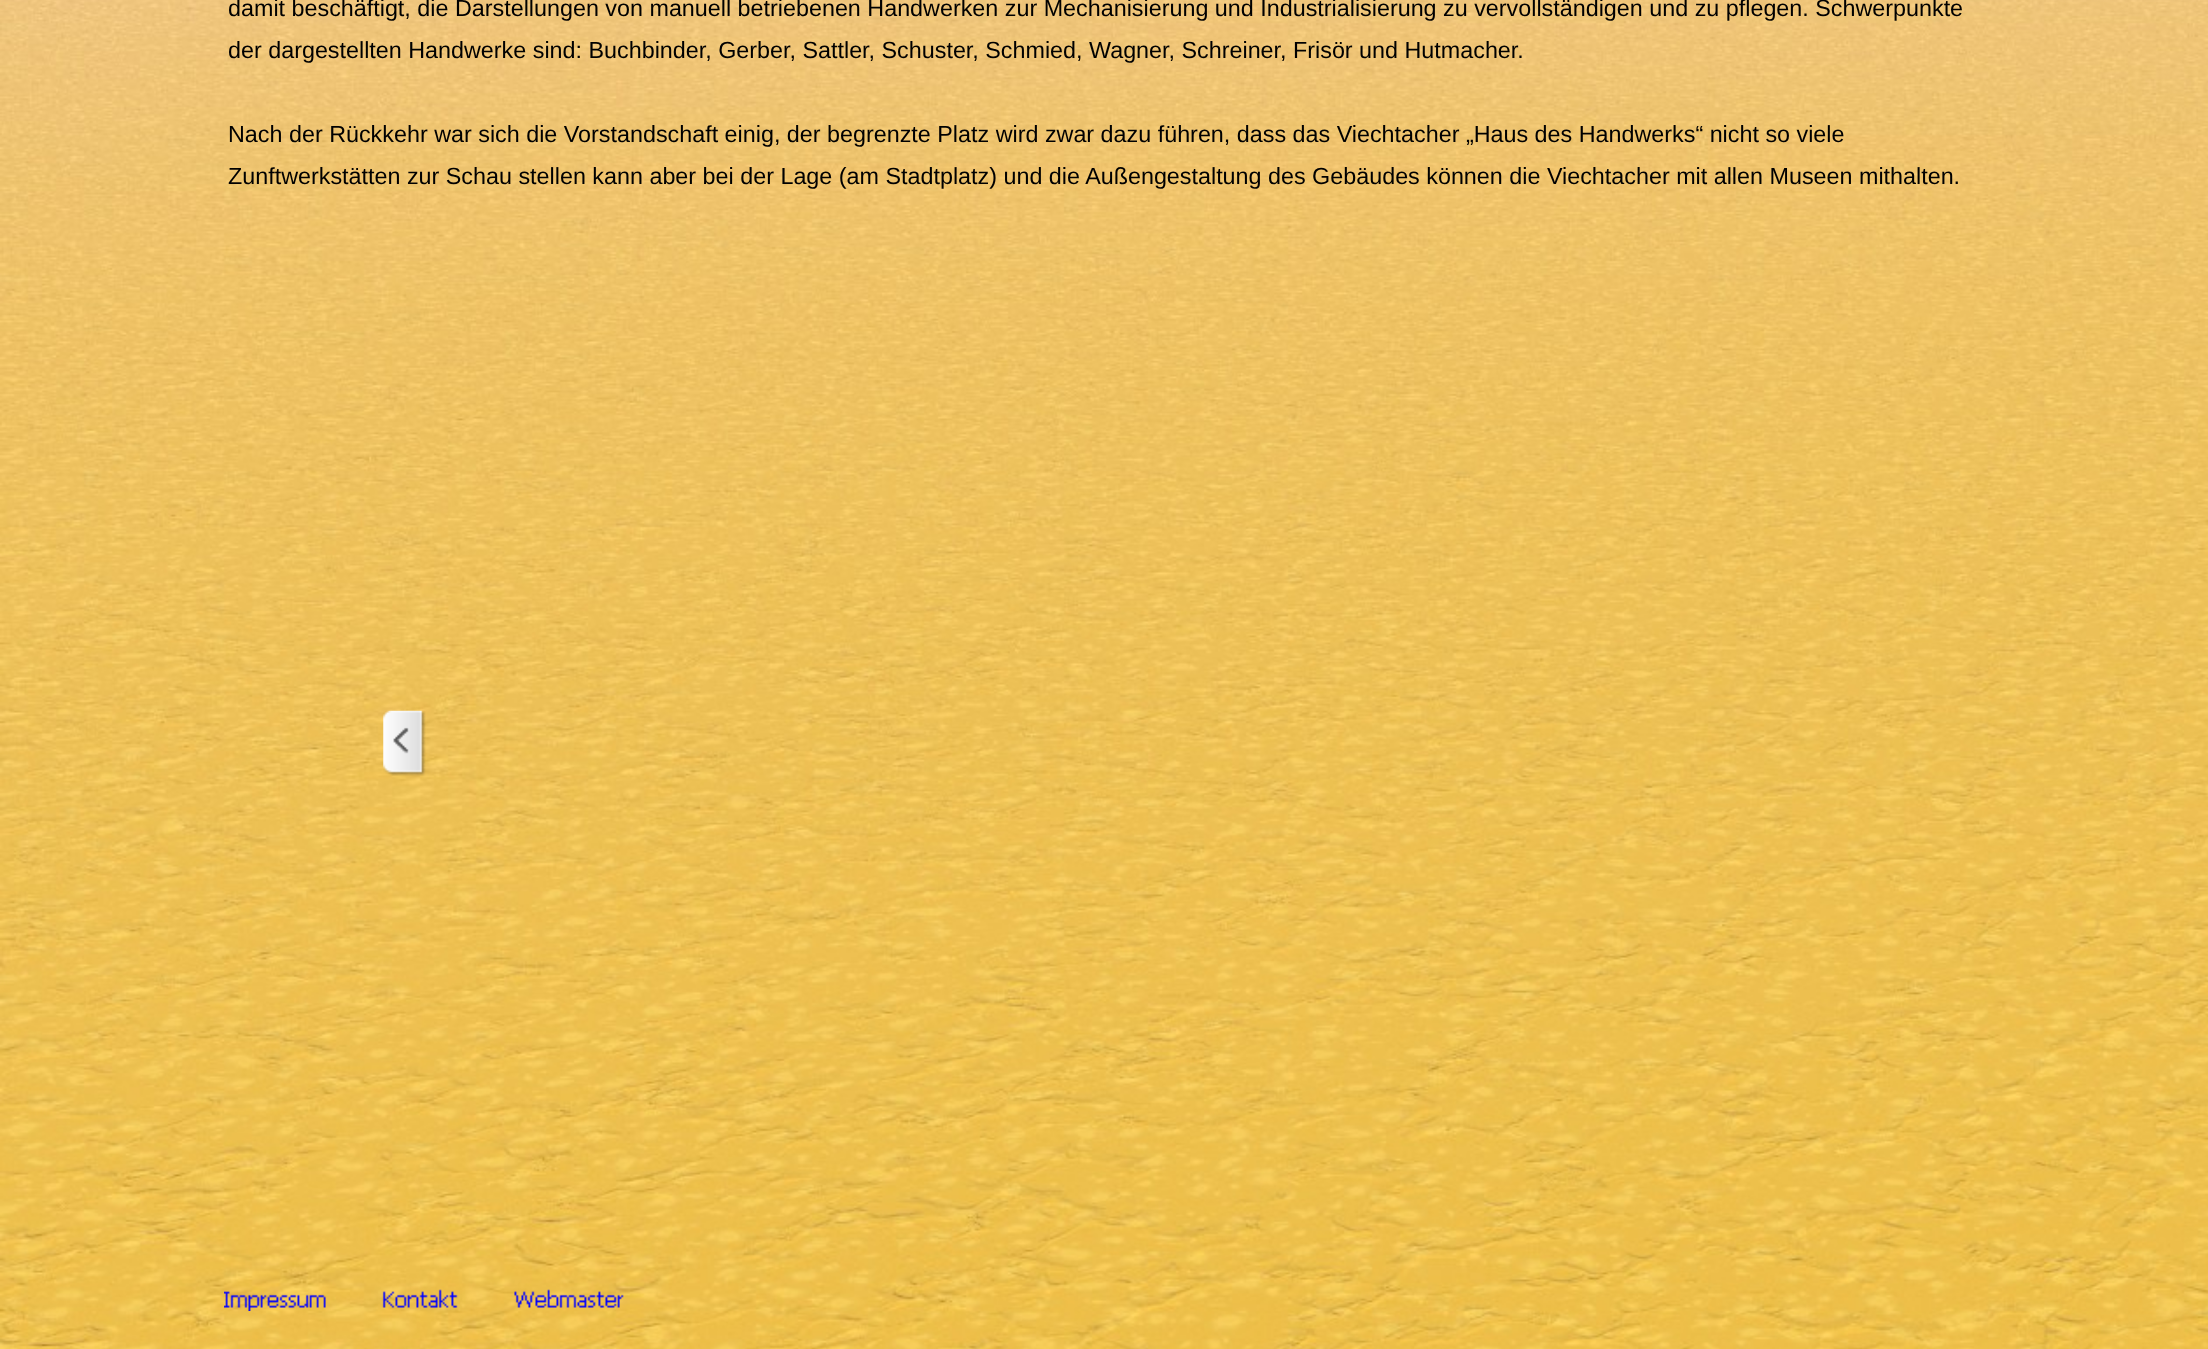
<svg xmlns="http://www.w3.org/2000/svg" width="2208" height="1349" viewBox="0 0 2208 1349">
  <rect width="100%" height="100%" fill="rgb(255,255,255)"/>
  <image x="0" y="0" width="2208" height="1349" href="pic1.png"/>
  <g font-family="Liberation Sans" font-size="23.33" fill="rgb(0,0,0)">
    <text>
      <tspan x="228" y="16">damit beschäftigt, die Darstellungen von manuell betriebenen Handwerken zur Mechanisierung und Industrialisierung zu vervollständigen und zu pflegen. Schwerpunkte</tspan>
      <tspan x="228" y="58">der dargestellten Handwerke sind: Buchbinder, Gerber, Sattler, Schuster, Schmied, Wagner, Schreiner, Frisör und Hutmacher.</tspan>
    </text>
    <text>
      <tspan x="228" y="142">Nach der Rückkehr war sich die Vorstandschaft einig, der begrenzte Platz wird zwar dazu führen, dass das Viechtacher „Haus des Handwerks“ nicht so viele</tspan>
      <tspan x="228" y="184">Zunftwerkstätten zur Schau stellen kann aber bei der Lage (am Stadtplatz) und die Außengestaltung des Gebäudes können die Viechtacher mit allen Museen mithalten.</tspan>
    </text>
  </g>
  <image x="383" y="710" width="43" height="66" href="pic2.png"/>
  <image x="224" y="1289" width="400" height="22" href="pic3.png"/>
</svg>
